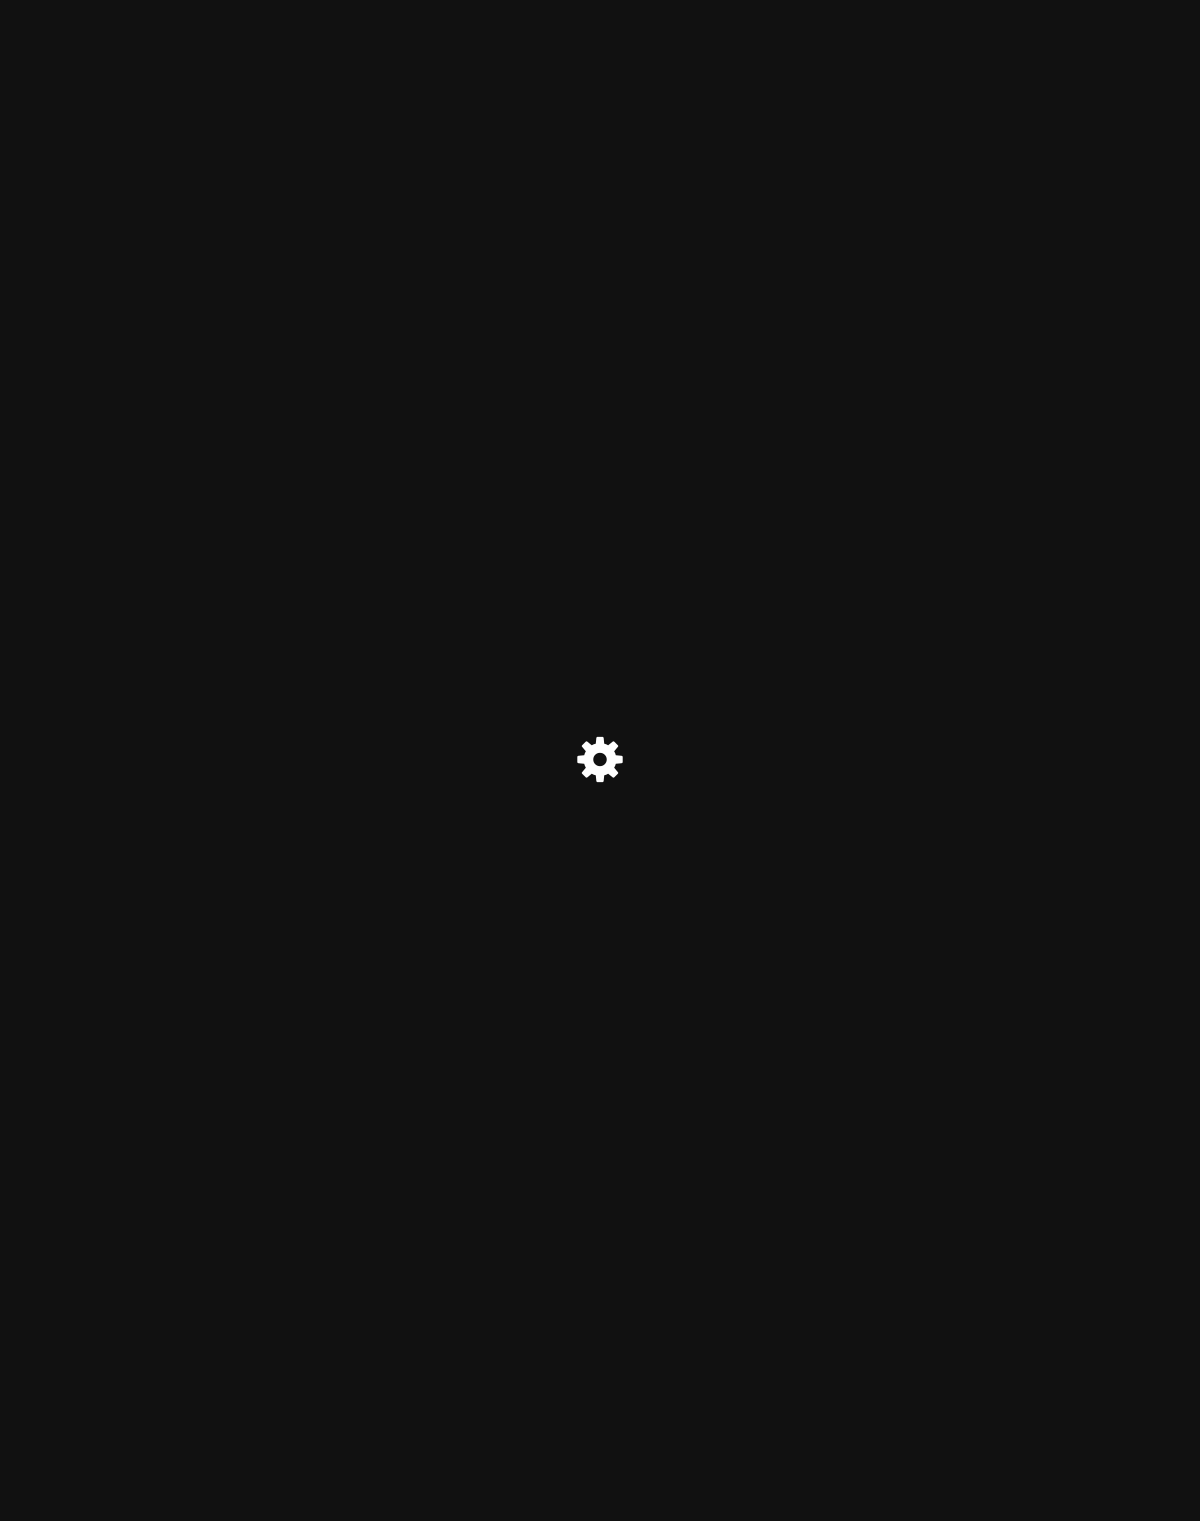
<svg xmlns="http://www.w3.org/2000/svg" width="1200" height="1521" viewBox="0 0 1200 1521">
  <rect width="100%" height="100%" fill="rgb(17,17,17)"/>
  <image x="577" y="736" width="46" height="47" href="pic1.png"/>
</svg>
